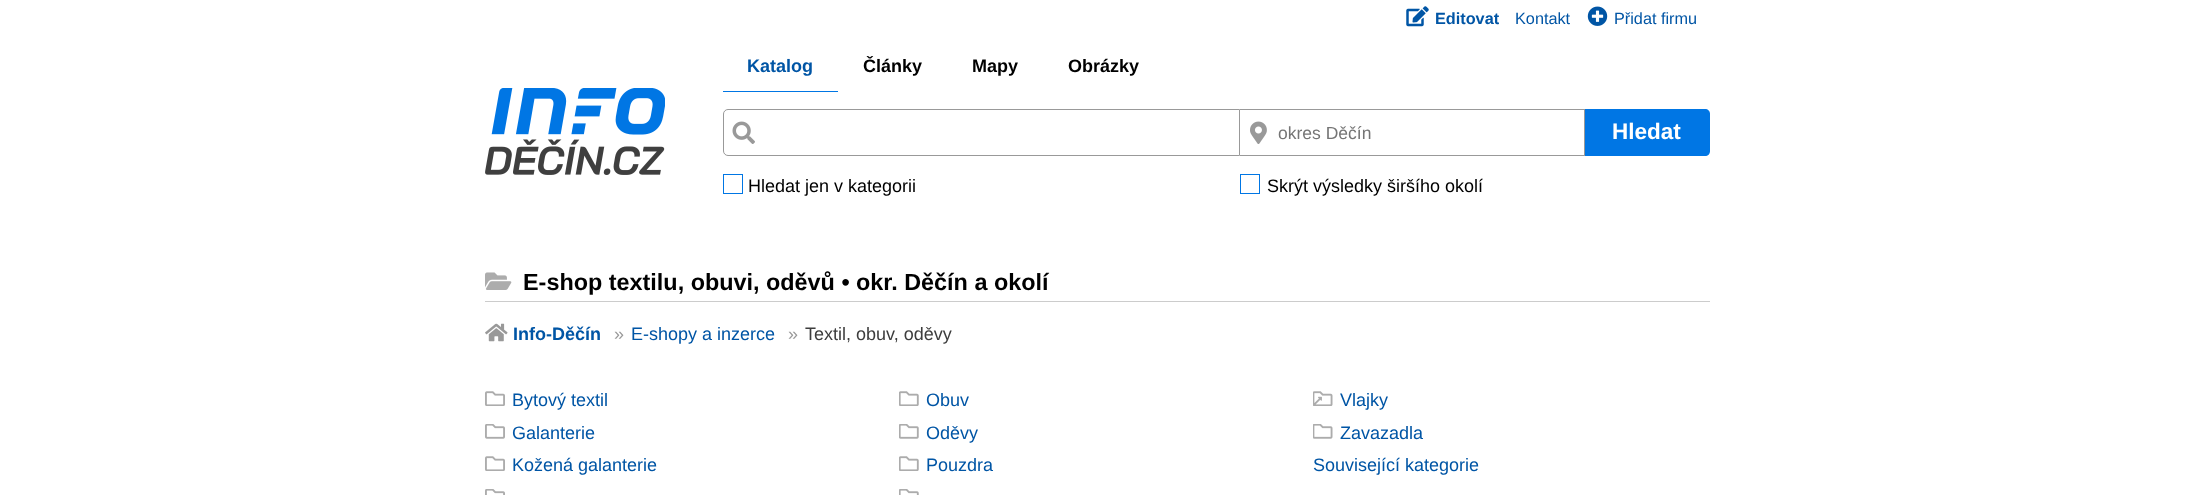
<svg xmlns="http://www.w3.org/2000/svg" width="2193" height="495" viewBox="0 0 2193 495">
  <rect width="100%" height="100%" fill="rgb(255,255,255)"/>
  <image x="1406" y="6" width="23" height="21" href="pic1.png"/>
  <text x="1435" y="24" font-family="Liberation Sans" font-size="16.25" font-weight="bold" fill="rgb(0,85,165)">Editovat</text>
  <text x="1515" y="24" font-family="Liberation Sans" font-size="16.25" fill="rgb(0,85,165)">Kontakt</text>
  <image x="1587" y="6" width="21" height="20" href="pic2.png"/>
  <text x="1614" y="24" font-family="Liberation Sans" font-size="16.25" fill="rgb(0,85,165)">Přidat firmu</text>
  <image x="485" y="88" width="180" height="87" href="pic3.png"/>
  <text x="747" y="72" font-family="Liberation Sans" font-size="18" font-weight="bold" fill="rgb(0,85,165)">Katalog</text>
  <rect x="723" y="91" width="115" height="1" fill="rgb(0,118,228)"/>
  <g font-family="Liberation Sans" font-size="18" font-weight="bold" fill="rgb(0,0,0)">
    <text x="863" y="72">Články</text>
    <text x="972" y="72">Mapy</text>
    <text x="1068" y="72">Obrázky</text>
  </g>
  <path d="M728 109.5H1239.5V155.5H728C725.5 155.5 723.5 153.5 723.5 151V114C723.5 111.5 725.5 109.5 728 109.5Z" fill="none" stroke="rgb(153,153,153)"/>
  <image x="732" y="121" width="23" height="23" href="pic4.png"/>
  <image x="1250" y="121" width="17" height="23" href="pic5.png"/>
  <rect x="1240" y="109" width="345" height="1" fill="rgb(153,153,153)"/>
  <rect x="1584" y="109" width="1" height="47" fill="rgb(153,153,153)"/>
  <rect x="1240" y="155" width="345" height="1" fill="rgb(153,153,153)"/>
  <text x="1278" y="139" font-family="Liberation Sans" font-size="17.5" fill="rgb(117,117,117)">okres Děčín</text>
  <path d="M1585 109H1705C1708 109 1710 111 1710 114V151C1710 154 1708 156 1705 156H1585Z" fill="rgb(0,118,228)"/>
  <text x="1612" y="139" font-family="Liberation Sans" font-size="22.5" font-weight="bold" fill="rgb(255,255,255)">Hledat</text>
  <rect x="723.5" y="174.5" width="19" height="19" fill="none" stroke="rgb(0,118,228)"/>
  <text x="748" y="192" font-family="Liberation Sans" font-size="18" fill="rgb(0,0,0)">Hledat jen v kategorii</text>
  <rect x="1240.5" y="174.5" width="19" height="19" fill="none" stroke="rgb(0,118,228)"/>
  <text x="1267" y="192" font-family="Liberation Sans" font-size="18" fill="rgb(0,0,0)">Skrýt výsledky širšího okolí</text>
  <rect x="485" y="301" width="1225" height="1" fill="rgb(204,204,204)"/>
  <image x="485" y="272" width="27" height="18" href="pic6.png"/>
  <text x="523" y="290" font-family="Liberation Sans" font-size="23.4" font-weight="bold" fill="rgb(0,0,0)">E-shop textilu, obuvi, oděvů • okr. Děčín a okolí</text>
  <image x="485" y="323" width="23" height="19" href="pic7.png"/>
  <text x="513" y="340" font-family="Liberation Sans" font-size="18" font-weight="bold" fill="rgb(0,85,165)">Info-Děčín</text>
  <text x="614" y="340" font-family="Liberation Sans" font-size="18" fill="rgb(153,153,153)">»</text>
  <text x="631" y="340" font-family="Liberation Sans" font-size="18" fill="rgb(0,85,165)">E-shopy a inzerce</text>
  <text x="788" y="340" font-family="Liberation Sans" font-size="18" fill="rgb(153,153,153)">»</text>
  <text x="805" y="340" font-family="Liberation Sans" font-size="18" fill="rgb(61,61,61)">Textil, obuv, oděvy</text>
  <image x="485" y="391" width="20" height="15" href="pic8.png"/>
  <text x="512" y="406" font-family="Liberation Sans" font-size="18" fill="rgb(0,85,165)">Bytový textil</text>
  <image x="899" y="391" width="20" height="15" href="pic9.png"/>
  <text x="926" y="406" font-family="Liberation Sans" font-size="18" fill="rgb(0,85,165)">Obuv</text>
  <image x="1313" y="391" width="20" height="15" href="pic10.png"/>
  <text x="1340" y="406" font-family="Liberation Sans" font-size="18" fill="rgb(0,85,165)">Vlajky</text>
  <image x="485" y="424" width="20" height="15" href="pic11.png"/>
  <text x="512" y="439" font-family="Liberation Sans" font-size="18" fill="rgb(0,85,165)">Galanterie</text>
  <image x="899" y="424" width="20" height="15" href="pic12.png"/>
  <text x="926" y="439" font-family="Liberation Sans" font-size="18" fill="rgb(0,85,165)">Oděvy</text>
  <image x="1313" y="424" width="20" height="15" href="pic13.png"/>
  <text x="1340" y="439" font-family="Liberation Sans" font-size="18" fill="rgb(0,85,165)">Zavazadla</text>
  <image x="485" y="456" width="20" height="15" href="pic8.png"/>
  <text x="512" y="471" font-family="Liberation Sans" font-size="18" fill="rgb(0,85,165)">Kožená galanterie</text>
  <image x="899" y="456" width="20" height="15" href="pic9.png"/>
  <g font-family="Liberation Sans" font-size="18" fill="rgb(0,85,165)">
    <text x="926" y="471">Pouzdra</text>
    <text x="1313" y="471">Související kategorie</text>
  </g>
  <image x="485" y="489" width="20" height="6" href="pic14.png"/>
  <image x="899" y="489" width="20" height="6" href="pic15.png"/>
</svg>
